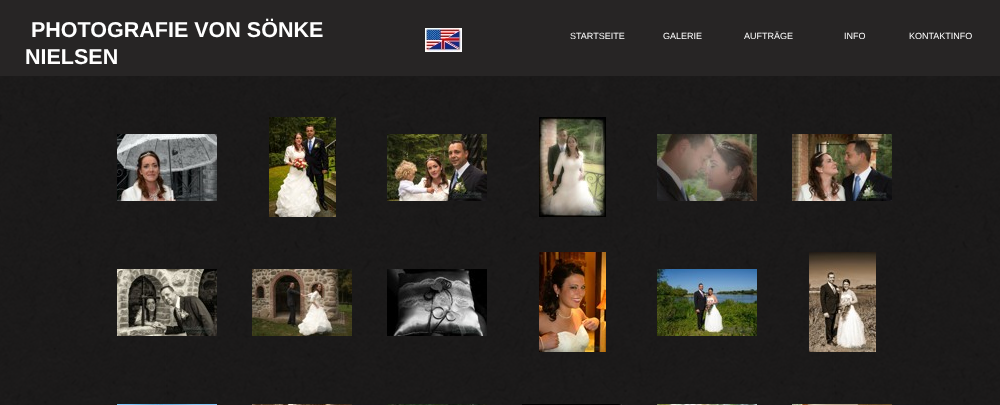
<svg xmlns="http://www.w3.org/2000/svg" width="1000" height="405" viewBox="0 0 1000 405">
  <rect width="100%" height="100%" fill="rgb(39,37,37)"/>
  <image x="0" y="76" width="1000" height="329" href="pic1.png"/>
  <g font-family="Liberation Sans" font-size="21.5" font-weight="bold" fill="rgb(255,255,255)">
    <text x="31" y="37">PHOTOGRAFIE VON SÖNKE</text>
    <text x="25" y="64">NIELSEN</text>
  </g>
  <image x="425" y="28" width="37" height="24" href="pic2.png"/>
  <g font-family="Liberation Sans" font-size="9" fill="rgb(255,255,255)">
    <text x="570" y="39">STARTSEITE</text>
    <text x="663" y="39">GALERIE</text>
    <text x="744" y="39">AUFTRÄGE</text>
    <text x="844" y="39">INFO</text>
    <text x="909" y="39">KONTAKTINFO</text>
  </g>
  <image x="117" y="134" width="100" height="67" href="pic3.png"/>
  <image x="269" y="117" width="67" height="100" href="pic4.png"/>
  <image x="387" y="134" width="100" height="67" href="pic5.png"/>
  <image x="539" y="117" width="67" height="100" href="pic6.png"/>
  <image x="657" y="134" width="100" height="67" href="pic7.png"/>
  <image x="792" y="134" width="100" height="67" href="pic8.png"/>
  <image x="117" y="269" width="100" height="67" href="pic9.png"/>
  <image x="252" y="269" width="100" height="67" href="pic10.png"/>
  <image x="387" y="269" width="100" height="67" href="pic11.png"/>
  <image x="539" y="252" width="67" height="100" href="pic12.png"/>
  <image x="657" y="269" width="100" height="67" href="pic13.png"/>
  <image x="809" y="252" width="67" height="100" href="pic14.png"/>
  <image x="117" y="404" width="100" height="1" href="pic15.png"/>
  <image x="252" y="404" width="100" height="1" href="pic16.png"/>
  <image x="387" y="404" width="100" height="1" href="pic17.png"/>
  <image x="522" y="404" width="100" height="1" href="pic18.png"/>
  <image x="657" y="404" width="100" height="1" href="pic19.png"/>
  <image x="792" y="404" width="100" height="1" href="pic20.png"/>
</svg>
